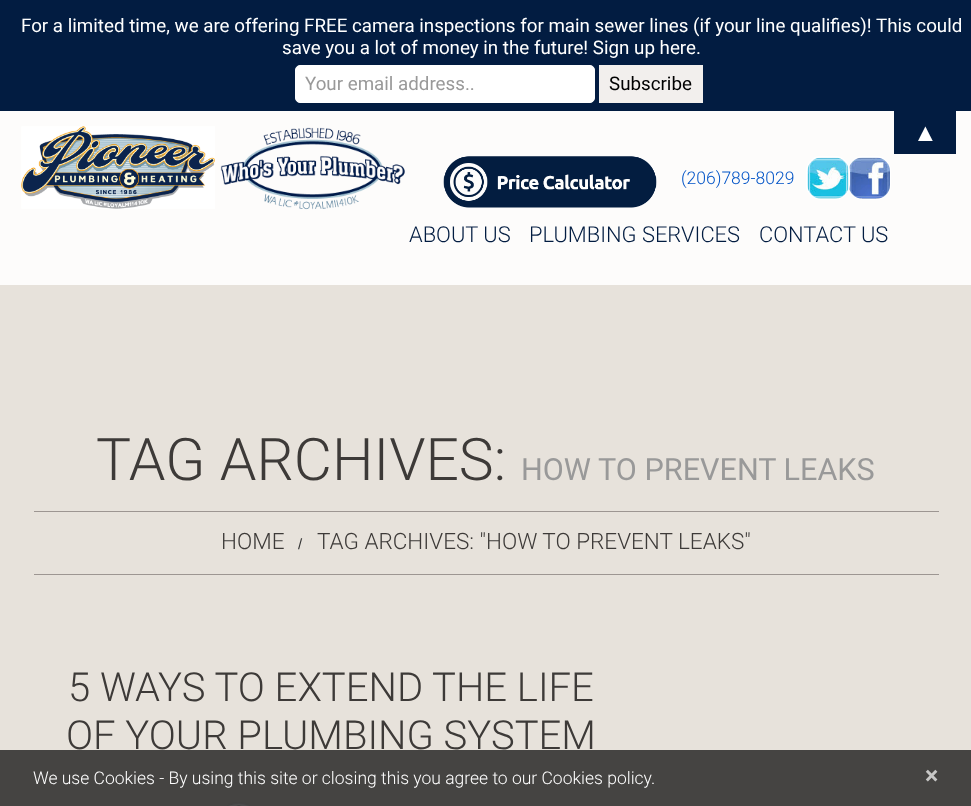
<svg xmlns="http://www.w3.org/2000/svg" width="971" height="806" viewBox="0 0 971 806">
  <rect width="100%" height="100%" fill="rgb(2,28,65)"/>
  <g font-family="Roboto" font-size="18.75" fill="rgb(255,255,255)">
    <text x="21" y="32">For a limited time, we are offering FREE camera inspections for main sewer lines (if your line qualifies)! This could</text>
    <text x="282" y="54">save you a lot of money in the future! Sign up here.</text>
  </g>
  <rect x="295.5" y="65.5" width="299" height="37" rx="4.5" fill="rgb(255,255,255)" stroke="rgb(255,255,255)"/>
  <text x="305" y="90" font-family="Roboto" font-size="18.75" fill="rgb(153,153,153)">Your email address..</text>
  <rect x="599" y="65" width="104" height="38" fill="rgb(242,239,237)"/>
  <text x="609" y="90" font-family="Roboto" font-size="18.75" fill="rgb(0,0,0)">Subscribe</text>
  <rect x="0" y="111" width="971" height="174" fill="rgb(253,252,251)"/>
  <rect x="894" y="111" width="62" height="43" fill="rgb(2,28,65)"/>
  <text x="913" y="141" font-family="Liberation Serif" font-size="25" fill="rgb(255,255,255)">▲</text>
  <image x="21" y="126" width="194" height="83" href="pic1.png"/>
  <image x="220" y="127" width="185" height="83" href="pic2.png"/>
  <image x="443" y="156" width="214" height="52" href="pic3.png"/>
  <text x="681" y="184" font-family="Roboto" font-size="17.5" font-weight="300" fill="rgb(2,84,199)">(206)789-8029</text>
  <rect x="848" y="156" width="43" height="44" rx="15" fill="rgb(255,255,255)"/>
  <image x="849" y="157" width="41" height="42" href="pic5.png"/>
  <rect x="806" y="156" width="44" height="44" rx="15" fill="rgb(255,255,255)"/>
  <image x="807" y="157" width="42" height="42" href="pic4.png"/>
  <g font-family="Roboto" font-size="21.9" font-weight="300" fill="rgb(2,28,65)">
    <text x="409" y="242">ABOUT US</text>
    <text x="529" y="242">PLUMBING SERVICES</text>
    <text x="759" y="242">CONTACT US</text>
  </g>
  <rect x="0" y="285" width="971" height="465" fill="rgb(231,226,219)"/>
  <rect x="0" y="750" width="971" height="56" fill="rgb(69,68,66)"/>
  <text x="96" y="480" font-family="Roboto" font-size="58.75" font-weight="300" fill="rgb(61,58,56)">TAG ARCHIVES:</text>
  <text x="521" y="480" font-family="Roboto" font-size="30.6" fill="rgb(153,153,153)">HOW TO PREVENT LEAKS</text>
  <rect x="34" y="511" width="905" height="1" fill="rgb(157,150,146)"/>
  <rect x="34" y="574" width="905" height="1" fill="rgb(157,150,146)"/>
  <text x="221" y="549" font-family="Roboto" font-size="22.5" font-weight="300" fill="rgb(61,58,56)">HOME</text>
  <text x="298" y="549" font-family="Liberation Sans" font-size="15" fill="rgb(51,51,51)">/</text>
  <text x="317" y="549" font-family="Roboto" font-size="22.5" font-weight="300" fill="rgb(61,58,56)">TAG ARCHIVES: "HOW TO PREVENT LEAKS"</text>
  <g font-family="Roboto" font-size="40" font-weight="300" fill="rgb(61,58,56)">
    <text x="68" y="701">5 WAYS TO EXTEND THE LIFE</text>
    <text x="66" y="749">OF YOUR PLUMBING SYSTEM</text>
  </g>
  <image x="227" y="802" width="23" height="4" href="pic6.png"/>
  <text x="33" y="784" font-family="Roboto" font-size="17.5" font-weight="300" fill="rgb(255,255,255)">We use Cookies - By using this site or closing this you agree to our Cookies policy.</text>
  <text x="925" y="784" font-family="Roboto" font-size="25" font-weight="bold" fill="rgb(199,199,198)">×</text>
</svg>
